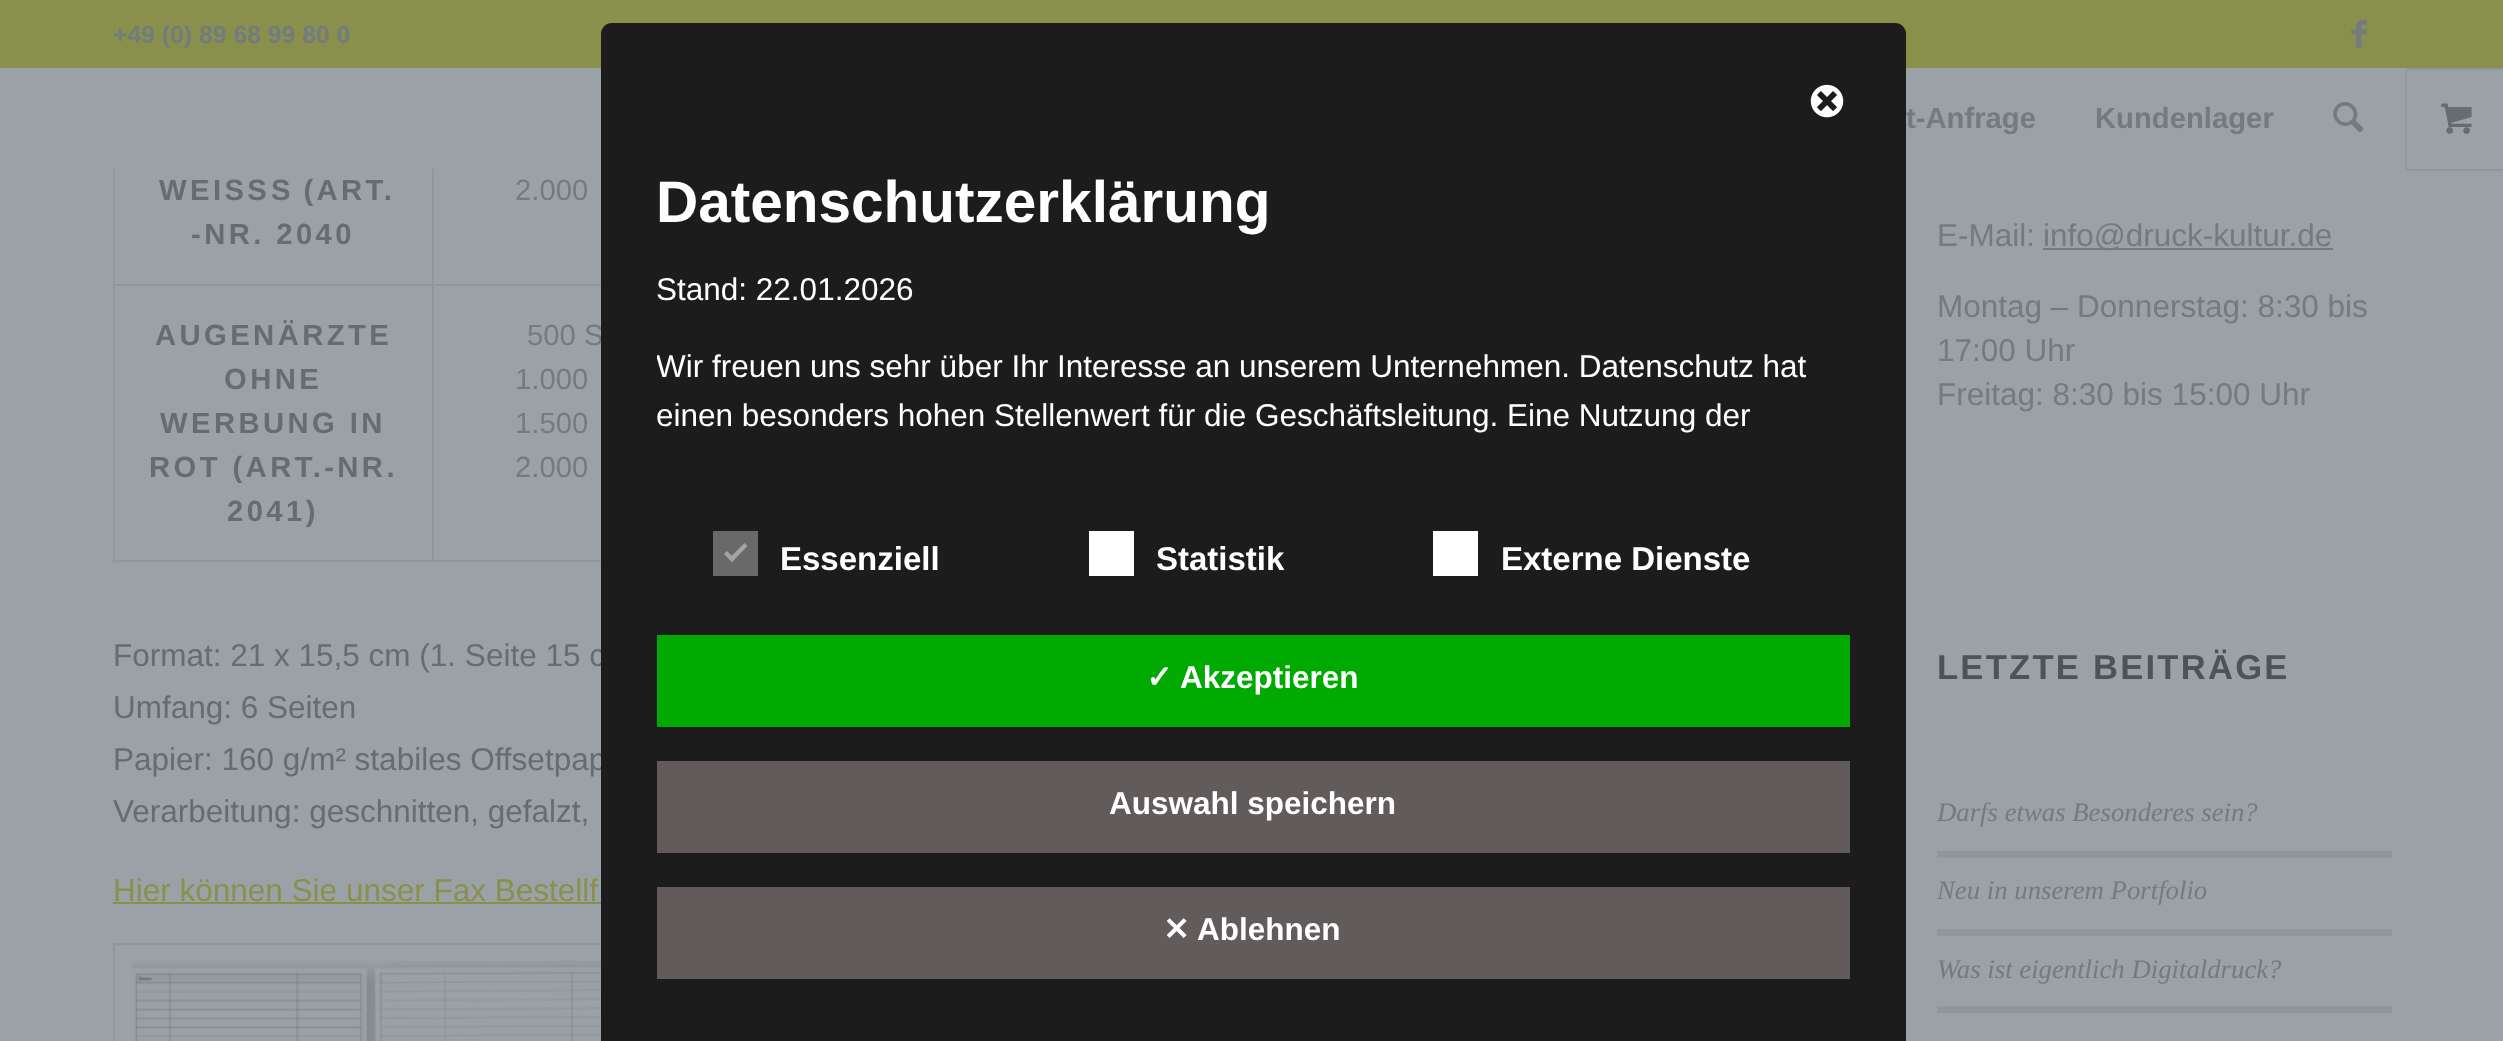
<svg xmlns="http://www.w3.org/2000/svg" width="2503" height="1041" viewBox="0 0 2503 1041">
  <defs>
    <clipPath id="clip1"><rect x="657" y="146" width="1215" height="313"/></clipPath>
  </defs>
  <rect width="100%" height="100%" fill="rgb(155,162,167)"/>
  <rect x="0" y="0" width="2503" height="68" fill="rgb(137,144,75)"/>
  <text x="113" y="43" font-family="Liberation Sans" font-size="24.75" font-weight="bold" fill="rgb(116,123,127)">+49 (0) 89 68 99 80 0</text>
  <image x="2351" y="19" width="16" height="30" href="pic1.png"/>
  <g font-family="Liberation Sans" font-size="29.25" font-weight="bold" fill="rgb(116,123,127)">
    <text x="1906" y="128">t-Anfrage</text>
    <text x="2095" y="128">Kundenlager</text>
  </g>
  <image x="2333" y="102" width="31" height="31" href="pic2.png"/>
  <rect x="2406" y="69" width="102" height="101" rx="4" fill="none" stroke="rgb(144,151,156)" stroke-width="2"/>
  <rect x="2408" y="70" width="1" height="99" fill="rgb(155,162,167)"/>
  <image x="2441" y="103" width="31" height="31" href="pic3.png"/>
  <rect x="432" y="560" width="169" height="2" fill="rgb(144,151,156)"/>
  <rect x="432" y="284" width="2" height="279" fill="rgb(144,151,156)"/>
  <rect x="432" y="284" width="169" height="2" fill="rgb(144,151,156)"/>
  <rect x="432" y="169" width="2" height="117" fill="rgb(144,151,156)"/>
  <rect x="113" y="560" width="321" height="2" fill="rgb(144,151,156)"/>
  <rect x="113" y="284" width="2" height="279" fill="rgb(144,151,156)"/>
  <rect x="113" y="284" width="321" height="2" fill="rgb(144,151,156)"/>
  <rect x="113" y="169" width="2" height="117" fill="rgb(144,151,156)"/>
  <g font-family="Liberation Sans" font-size="29.25" font-weight="bold" letter-spacing="3.4" fill="rgb(101,109,113)">
    <text x="159" y="200">WEISS</text>
    <text x="271" y="200" word-spacing="-2">S (ART.</text>
    <text x="191" y="244">-NR. 2040</text>
  </g>
  <text x="515" y="200" font-family="Liberation Sans" font-size="29.25" fill="rgb(116,123,127)">2.000</text>
  <g font-family="Liberation Sans" font-size="29.25" font-weight="bold" letter-spacing="3.4" fill="rgb(101,109,113)">
    <text x="155" y="345">AUGENÄRZTE</text>
    <text x="224" y="389">OHNE</text>
    <text x="160" y="433">WERBUNG IN</text>
    <text x="149" y="477">ROT (ART.-NR.</text>
    <text x="227" y="521">2041)</text>
  </g>
  <g font-family="Liberation Sans" font-size="29.25" fill="rgb(116,123,127)">
    <text x="527" y="345">500 S</text>
    <text>
      <tspan x="515" y="389">1.000</tspan>
      <tspan x="515" y="433">1.500</tspan>
      <tspan x="515" y="477">2.000</tspan>
    </text>
  </g>
  <g font-family="Liberation Sans" font-size="31.5" fill="rgb(101,109,113)">
    <text>
      <tspan x="113" y="666">Format: 21 x 15,5 cm (1. Seite 15 c</tspan>
      <tspan x="113" y="718">Umfang: 6 Seiten</tspan>
      <tspan x="113" y="770">Papier: 160 g/m² stabiles Offsetpap</tspan>
      <tspan x="113" y="822">Verarbeitung: geschnitten, gefalzt,</tspan>
    </text>
  </g>
  <text x="113" y="901" font-family="Liberation Sans" font-size="31.5" fill="rgb(137,144,75)">Hier können Sie unser Fax Bestellf</text>
  <rect x="113" y="902" width="488" height="2" fill="rgb(137,144,75)"/>
  <rect x="114" y="944" width="531" height="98" fill="none" stroke="rgb(144,151,156)" stroke-width="2"/>
  <image x="130" y="960" width="471" height="81" href="pic4.png"/>
  <text x="1937" y="246" font-family="Liberation Sans" font-size="31.5" fill="rgb(116,123,127)">E-Mail:</text>
  <rect x="2043" y="248" width="290" height="2" fill="rgb(116,123,127)"/>
  <g font-family="Liberation Sans" font-size="31.5" fill="rgb(116,123,127)">
    <text x="2043" y="246">info@druck-kultur.de</text>
    <text>
      <tspan x="1937" y="317">Montag – Donnerstag: 8:30 bis</tspan>
      <tspan x="1937" y="361">17:00 Uhr</tspan>
      <tspan x="1937" y="405">Freitag: 8:30 bis 15:00 Uhr</tspan>
    </text>
  </g>
  <text x="1937" y="679" font-family="Liberation Sans" font-size="34.6" font-weight="bold" letter-spacing="2.25" fill="rgb(76,84,88)">LETZTE BEITRÄGE</text>
  <text x="1937" y="821" font-family="Liberation Serif" font-size="26.75" font-style="italic" fill="rgb(116,123,127)">Darfs etwas Besonderes sein?</text>
  <rect x="1937" y="851" width="455" height="7" fill="rgb(144,151,156)"/>
  <text x="1937" y="899" font-family="Liberation Serif" font-size="26.75" font-style="italic" fill="rgb(116,123,127)">Neu in unserem Portfolio</text>
  <rect x="1937" y="929" width="455" height="7" fill="rgb(144,151,156)"/>
  <text x="1937" y="978" font-family="Liberation Serif" font-size="26.75" font-style="italic" fill="rgb(116,123,127)">Was ist eigentlich Digitaldruck?</text>
  <rect x="1937" y="1006" width="455" height="7" fill="rgb(144,151,156)"/>
  <rect x="601" y="23" width="1305" height="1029" rx="11" fill="rgb(29,28,28)"/>
  <image x="1810" y="84" width="34" height="34" href="pic5.png"/>
  <text x="656" y="222" font-family="Liberation Sans" font-size="58.5" font-weight="bold" fill="rgb(255,255,255)">Datenschutzerklärung</text>
  <text x="656" y="300" font-family="Liberation Sans" font-size="31.5" fill="rgb(255,255,255)">Stand: 22.01.2026</text>
  <g clip-path="url(#clip1)">
    <text x="656" y="377" font-family="Liberation Sans" font-size="31.5" fill="rgb(255,255,255)">Wir freuen uns sehr über Ihr Interesse an unserem Unternehmen. Datenschutz hat</text>
  </g>
  <text x="656" y="426" font-family="Liberation Sans" font-size="31.5" fill="rgb(255,255,255)">einen besonders hohen Stellenwert für die Geschäftsleitung. Eine Nutzung der</text>
  <rect x="713" y="531" width="45" height="45" fill="rgb(105,105,105)"/>
  <path d="M744.5 543L747.5 546L732 562L728.5 559Z" fill="rgb(165,164,164)"/>
  <path d="M727 551L735 559L732 562L724 554Z" fill="rgb(165,164,164)"/>
  <text x="780" y="570" font-family="Liberation Sans" font-size="33" font-weight="bold" fill="rgb(255,255,255)">Essenziell</text>
  <rect x="1089" y="531" width="45" height="45" fill="rgb(255,255,255)"/>
  <text x="1156" y="570" font-family="Liberation Sans" font-size="33" font-weight="bold" fill="rgb(255,255,255)">Statistik</text>
  <rect x="1433" y="531" width="45" height="45" fill="rgb(255,255,255)"/>
  <text x="1501" y="570" font-family="Liberation Sans" font-size="33" font-weight="bold" fill="rgb(255,255,255)">Externe Dienste</text>
  <rect x="657" y="635" width="1193" height="92" fill="rgb(0,170,0)"/>
  <text x="1146" y="688" font-family="DejaVu Sans" font-size="31.5" font-weight="bold" fill="rgb(255,255,255)">✓</text>
  <text x="1180" y="688" font-family="Liberation Sans" font-size="31.5" font-weight="bold" fill="rgb(255,255,255)">Akzeptieren</text>
  <rect x="657" y="761" width="1193" height="92" fill="rgb(97,91,91)"/>
  <text x="1109" y="814" font-family="Liberation Sans" font-size="31.5" font-weight="bold" fill="rgb(255,255,255)">Auswahl speichern</text>
  <rect x="657" y="887" width="1193" height="92" fill="rgb(97,91,91)"/>
  <text x="1163" y="940" font-family="DejaVu Sans" font-size="31.5" font-weight="bold" fill="rgb(255,255,255)">✕</text>
  <text x="1197" y="940" font-family="Liberation Sans" font-size="31.5" font-weight="bold" fill="rgb(255,255,255)">Ablehnen</text>
</svg>
